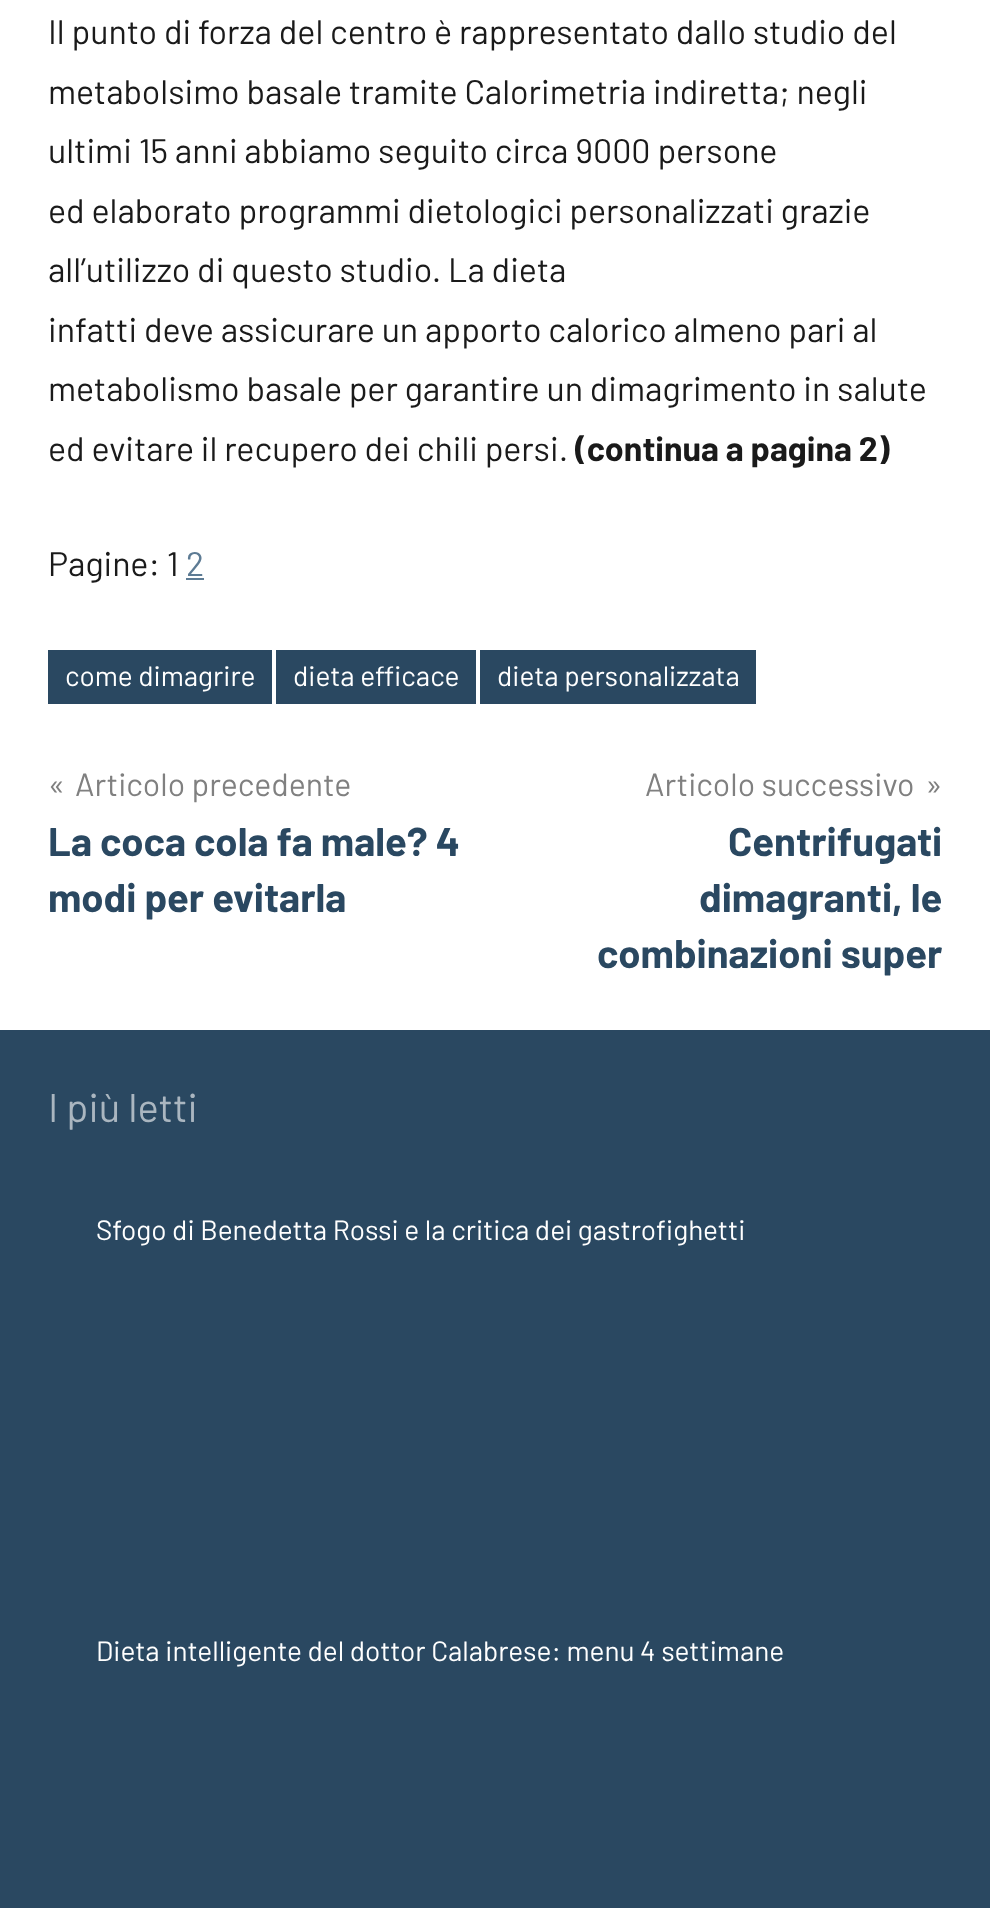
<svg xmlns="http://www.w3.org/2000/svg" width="990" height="1908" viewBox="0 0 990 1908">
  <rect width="100%" height="100%" fill="rgb(255,255,255)"/>
  <g font-family="Barlow" font-size="34" fill="rgb(26,26,26)">
    <text>
      <tspan x="48" y="44">Il punto di forza del centro è rappresentato dallo studio del</tspan>
      <tspan x="48" y="104">metabolsimo basale tramite Calorimetria indiretta; negli</tspan>
      <tspan x="48" y="163">ultimi 15 anni abbiamo seguito circa 9000 persone</tspan>
      <tspan x="48" y="223">ed elaborato programmi dietologici personalizzati grazie</tspan>
      <tspan x="48" y="282">all’utilizzo di questo studio. La dieta</tspan>
      <tspan x="48" y="342">infatti deve assicurare un apporto calorico almeno pari al</tspan>
      <tspan x="48" y="401">metabolismo basale per garantire un dimagrimento in salute</tspan>
      <tspan x="48" y="461">ed evitare il recupero dei chili persi.</tspan>
    </text>
  </g>
  <text x="575" y="461" font-family="Barlow" font-size="34" font-weight="bold" fill="rgb(26,26,26)">(continua a pagina 2)</text>
  <text x="48" y="576" font-family="Barlow" font-size="34" fill="rgb(26,26,26)">Pagine: 1</text>
  <text x="186" y="576" font-family="Barlow" font-size="34" fill="rgb(93,123,148)">2</text>
  <rect x="186" y="578" width="18" height="2" fill="rgb(93,123,148)"/>
  <rect x="48" y="650" width="224" height="54" fill="rgb(42,72,97)"/>
  <text x="65" y="686" font-family="Barlow" font-size="28" fill="rgb(255,255,255)">come dimagrire</text>
  <rect x="276" y="650" width="200" height="54" fill="rgb(42,72,97)"/>
  <text x="293" y="686" font-family="Barlow" font-size="28" fill="rgb(255,255,255)">dieta efficace</text>
  <rect x="480" y="650" width="276" height="54" fill="rgb(42,72,97)"/>
  <text x="497" y="686" font-family="Barlow" font-size="28" fill="rgb(255,255,255)">dieta personalizzata</text>
  <g font-family="Barlow" font-size="32" fill="rgb(128,128,128)">
    <text x="48" y="796">«</text>
    <text x="75" y="796">Articolo precedente</text>
  </g>
  <g font-family="Barlow" font-size="40" font-weight="bold" fill="rgb(42,72,97)">
    <text>
      <tspan x="48" y="856">La coca cola fa male? 4</tspan>
      <tspan x="48" y="912">modi per evitarla</tspan>
    </text>
  </g>
  <g font-family="Barlow" font-size="32" fill="rgb(128,128,128)">
    <text x="645" y="796">Articolo successivo</text>
    <text x="925" y="796">»</text>
  </g>
  <g font-family="Barlow" font-size="40" font-weight="bold" fill="rgb(42,72,97)">
    <text x="728" y="856">Centrifugati</text>
    <text x="699" y="912">dimagranti, le</text>
    <text x="597" y="968">combinazioni super</text>
  </g>
  <rect x="0" y="1030" width="990" height="878" fill="rgb(42,72,97)"/>
  <text x="48" y="1122" font-family="Barlow" font-size="40" fill="rgb(170,182,192)">I più letti</text>
  <g font-family="Barlow" font-size="28" fill="rgb(255,255,255)">
    <text x="96" y="1240">Sfogo di Benedetta Rossi e la critica dei gastrofighetti</text>
    <text x="96" y="1661">Dieta intelligente del dottor Calabrese: menu 4 settimane</text>
  </g>
</svg>
